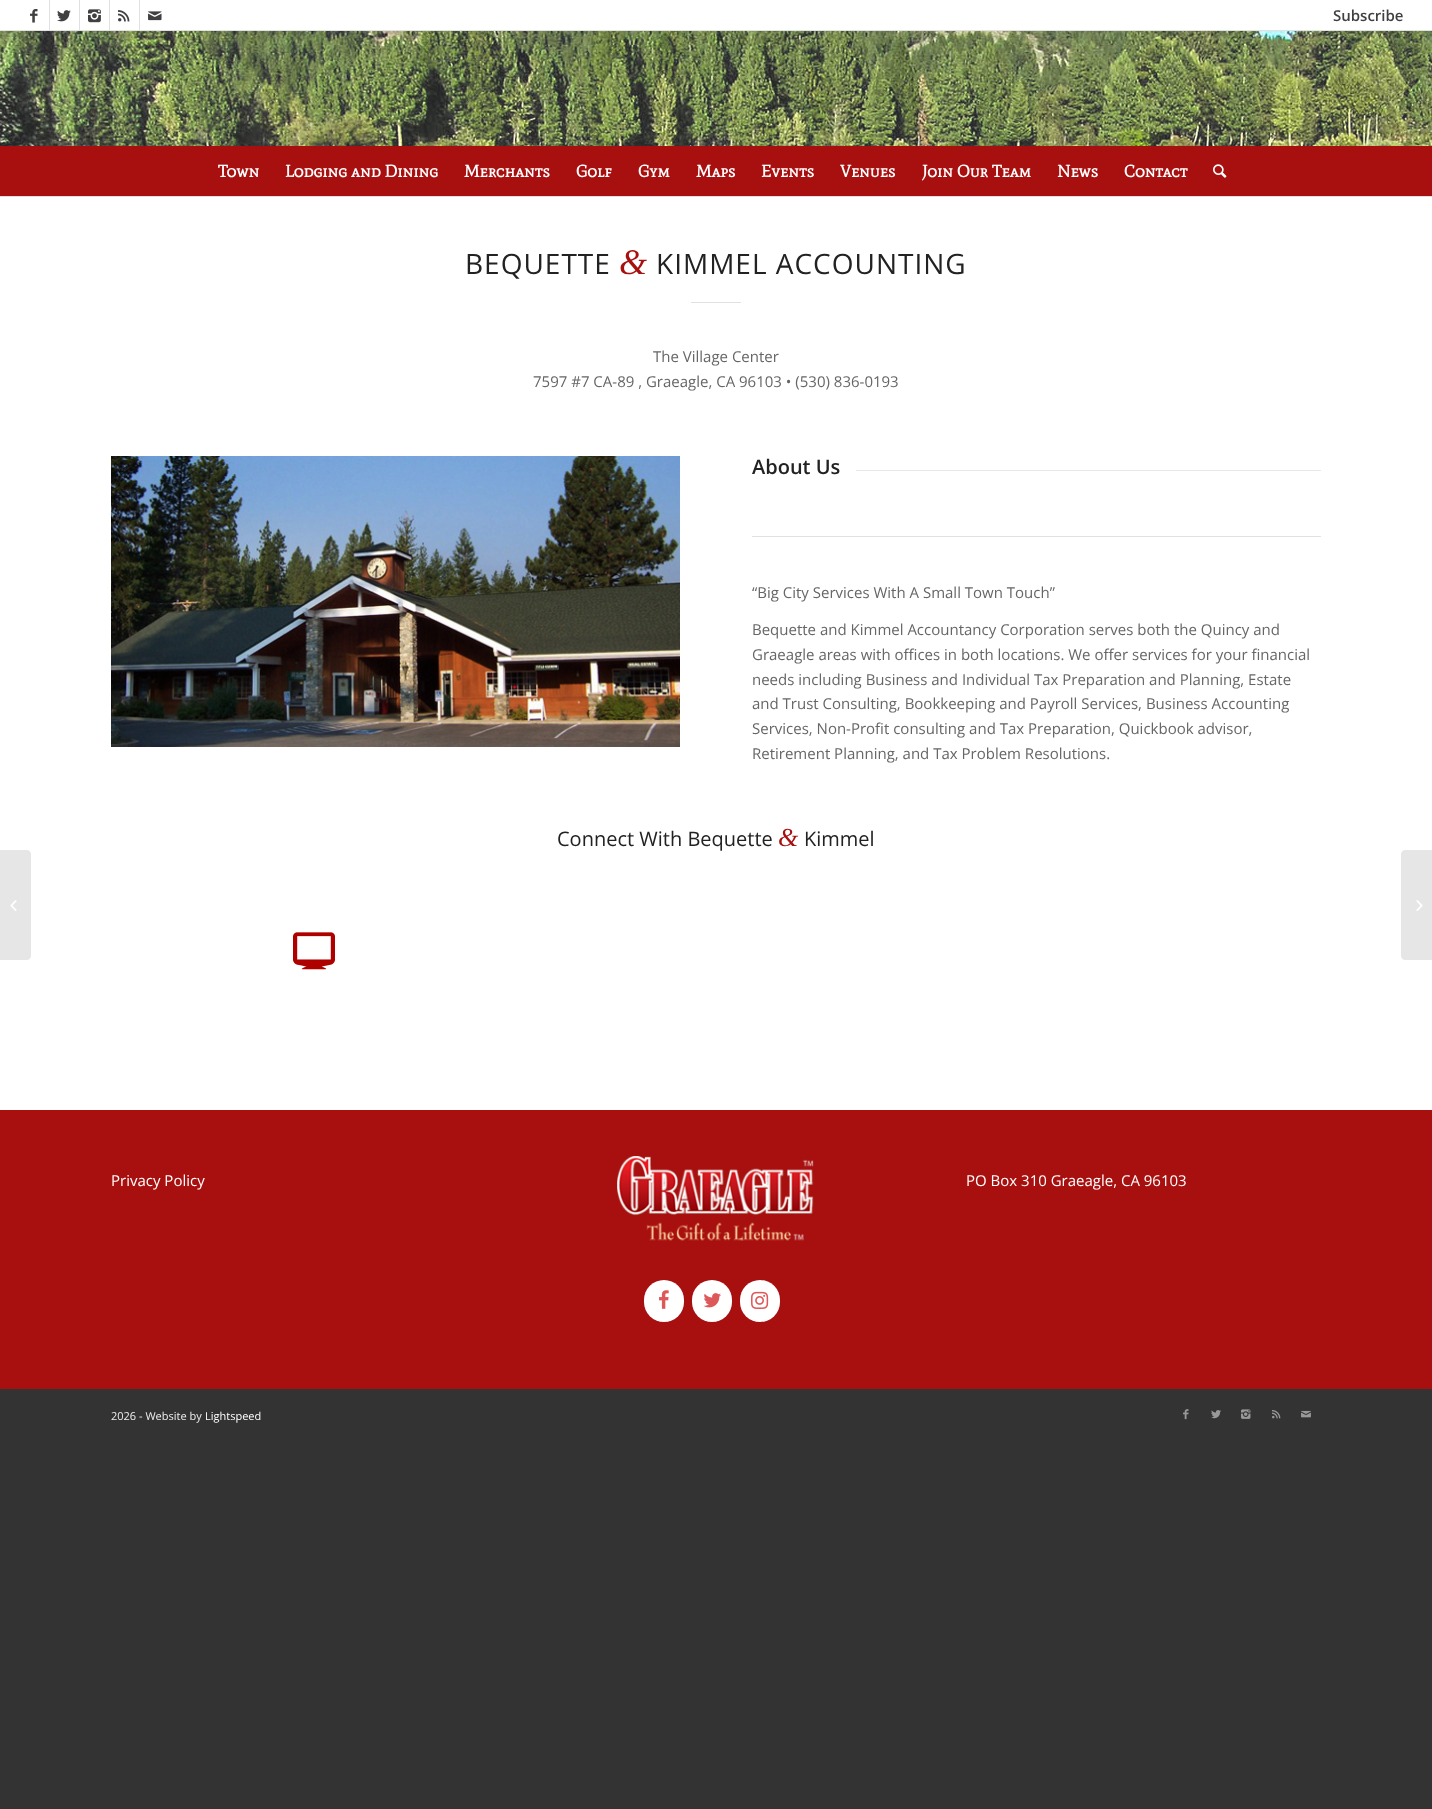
<svg xmlns="http://www.w3.org/2000/svg" width="1432" height="1809" viewBox="0 0 1432 1809">
  <rect width="100%" height="100%" fill="rgb(51,51,51)"/>
  <rect x="0" y="0" width="1432" height="30" fill="rgb(255,255,255)"/>
  <rect x="0" y="30" width="1432" height="1" fill="rgb(225,225,225)"/>
  <rect x="49" y="0" width="1" height="30" fill="rgb(225,225,225)"/>
  <image x="30" y="9" width="8" height="14" href="pic1.png"/>
  <rect x="79" y="0" width="1" height="30" fill="rgb(225,225,225)"/>
  <image x="57" y="10" width="14" height="12" href="pic2.png"/>
  <rect x="109" y="0" width="1" height="30" fill="rgb(225,225,225)"/>
  <image x="88" y="9" width="13" height="14" href="pic3.png"/>
  <rect x="139" y="0" width="1" height="30" fill="rgb(225,225,225)"/>
  <image x="118" y="10" width="12" height="12" href="pic4.png"/>
  <image x="148" y="11" width="14" height="10" href="pic5.png"/>
  <text x="1333" y="21" font-family="Open Sans" font-size="15" font-weight="600" fill="rgb(64,64,64)">Subscribe</text>
  <rect x="0" y="31" width="1432" height="1079" fill="rgb(255,255,255)"/>
  <image x="0" y="31" width="1432" height="115" href="pic6.png"/>
  <rect x="0" y="31" width="1432" height="115" fill="rgba(255,255,255,0.1)"/>
  <rect x="0" y="196" width="1432" height="1" fill="rgb(225,225,225)"/>
  <rect x="0" y="146" width="1432" height="50" fill="rgb(168,16,16)"/>
  <g font-family="Mate SC" font-size="17" font-weight="bold" fill="rgb(255,255,255)">
    <text x="218" y="177">Town</text>
    <text x="285" y="177">Lodging and Dining</text>
    <text x="464" y="177">Merchants</text>
    <text x="576" y="177">Golf</text>
    <text x="638" y="177">Gym</text>
    <text x="696" y="177">Maps</text>
    <text x="761" y="177">Events</text>
    <text x="840" y="177">Venues</text>
    <text x="922" y="177">Join Our Team</text>
    <text x="1057" y="177">News</text>
    <text x="1124" y="177">Contact</text>
  </g>
  <image x="1213" y="164" width="14" height="14" href="pic7.png"/>
  <path d="M0 850H27C29 850 31 852 31 854V956C31 958 29 960 27 960H0Z" fill="rgb(230,230,230)"/>
  <image x="10" y="900" width="7" height="11" href="pic8.png"/>
  <text x="465" y="274" font-family="Open Sans" font-size="28" letter-spacing="1" fill="rgb(34,34,34)">BEQUETTE</text>
  <text x="619" y="274" font-family="Liberation Serif" font-size="36" font-style="italic" letter-spacing="1" fill="rgb(168,16,16)">&amp;</text>
  <text x="656" y="274" font-family="Open Sans" font-size="28" letter-spacing="1" fill="rgb(34,34,34)">KIMMEL ACCOUNTING</text>
  <rect x="691" y="302" width="50" height="1" fill="rgb(225,225,225)"/>
  <g font-family="Open Sans" font-size="15" fill="rgb(102,102,102)">
    <text x="653" y="362">The Village Center</text>
    <text x="533" y="387">7597 #7 CA-89 , Graeagle, CA 96103 • (530) 836-0193</text>
  </g>
  <image x="111" y="456" width="569" height="291" href="pic9.png"/>
  <text x="752" y="474" font-family="Open Sans" font-size="20" font-weight="600" fill="rgb(34,34,34)">About Us</text>
  <rect x="856" y="470" width="465" height="1" fill="rgb(232,232,232)"/>
  <rect x="752" y="536" width="569" height="1" fill="rgb(225,225,225)"/>
  <g font-family="Open Sans" font-size="15" fill="rgb(102,102,102)">
    <text x="752" y="598">“Big City Services With A Small Town Touch”</text>
    <text>
      <tspan x="752" y="635">Bequette and Kimmel Accountancy Corporation serves both the Quincy and</tspan>
      <tspan x="752" y="660">Graeagle areas with offices in both locations. We offer services for your financial</tspan>
      <tspan x="752" y="685">needs including Business and Individual Tax Preparation and Planning, Estate</tspan>
      <tspan x="752" y="709">and Trust Consulting, Bookkeeping and Payroll Services, Business Accounting</tspan>
      <tspan x="752" y="734">Services, Non-Profit consulting and Tax Preparation, Quickbook advisor,</tspan>
      <tspan x="752" y="759">Retirement Planning, and Tax Problem Resolutions.</tspan>
    </text>
  </g>
  <text x="557" y="846" font-family="Open Sans" font-size="20" fill="rgb(34,34,34)">Connect With Bequette</text>
  <text x="778" y="846" font-family="Liberation Serif" font-size="26" font-style="italic" fill="rgb(168,16,16)">&amp;</text>
  <text x="804" y="846" font-family="Open Sans" font-size="20" fill="rgb(34,34,34)">Kimmel</text>
  <image x="293" y="932" width="42" height="38" href="pic10.png"/>
  <rect x="0" y="1110" width="1432" height="279" fill="rgb(168,16,16)"/>
  <text x="111" y="1186" font-family="Open Sans" font-size="15" fill="rgb(255,255,255)">Privacy Policy</text>
  <image x="617" y="1156" width="197" height="85" href="pic11.png"/>
  <rect x="644" y="1280" width="40" height="42" rx="20" fill="rgb(255,255,255)"/>
  <image x="659" y="1290" width="10" height="19" href="pic12.png"/>
  <rect x="692" y="1280" width="40" height="42" rx="20" fill="rgb(255,255,255)"/>
  <image x="703" y="1293" width="18" height="15" href="pic13.png"/>
  <rect x="740" y="1280" width="40" height="42" rx="20" fill="rgb(255,255,255)"/>
  <image x="751" y="1291" width="18" height="18" href="pic14.png"/>
  <text x="966" y="1186" font-family="Open Sans" font-size="15" fill="rgb(255,255,255)">PO Box 310 Graeagle, CA 96103</text>
  <text x="111" y="1420" font-family="Open Sans" font-size="11" fill="rgb(238,238,238)">2026 - Website by</text>
  <text x="205" y="1420" font-family="Open Sans" font-size="11" fill="rgb(255,255,255)">Lightspeed</text>
  <image x="1183" y="1409" width="6" height="11" href="pic15.png"/>
  <image x="1211" y="1410" width="10" height="9" href="pic16.png"/>
  <image x="1241" y="1409" width="10" height="10" href="pic17.png"/>
  <image x="1272" y="1410" width="9" height="9" href="pic18.png"/>
  <image x="1301" y="1410" width="10" height="8" href="pic19.png"/>
  <path d="M1405 850H1432V960H1405C1403 960 1401 958 1401 956V854C1401 852 1403 850 1405 850Z" fill="rgb(230,230,230)"/>
  <image x="1416" y="900" width="7" height="11" href="pic20.png"/>
</svg>
